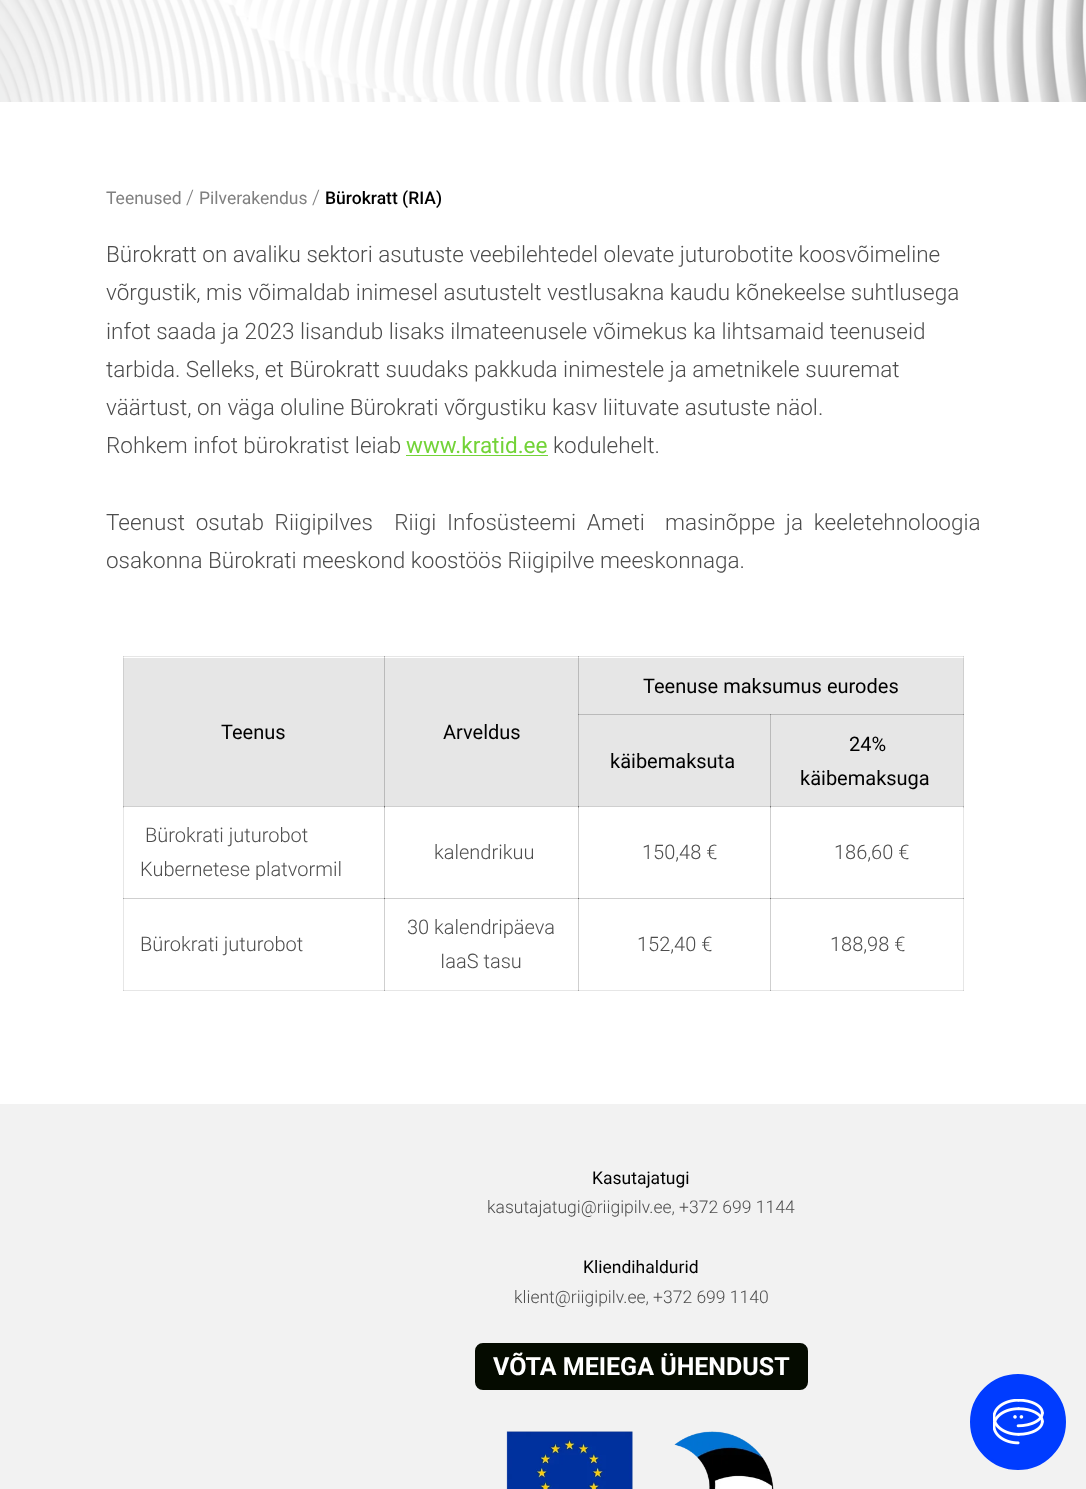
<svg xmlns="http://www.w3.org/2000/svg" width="1086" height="1489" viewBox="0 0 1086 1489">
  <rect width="100%" height="100%" fill="rgb(255,255,255)"/>
  <rect x="123" y="656" width="1" height="2" fill="rgb(230,230,230)"/>
  <rect x="123" y="656" width="262" height="1" fill="rgb(230,230,230)"/>
  <rect x="123" y="656" width="1" height="1" fill="rgb(207,207,207)"/>
  <rect x="384" y="656" width="1" height="2" fill="rgb(207,207,207)"/>
  <rect x="384" y="656" width="195" height="1" fill="rgb(230,230,230)"/>
  <rect x="384" y="656" width="1" height="1" fill="rgb(167,167,167)"/>
  <rect x="578" y="656" width="1" height="2" fill="rgb(207,207,207)"/>
  <rect x="963" y="656" width="1" height="2" fill="rgb(230,230,230)"/>
  <rect x="123" y="806" width="1" height="185" fill="rgb(230,230,230)"/>
  <rect x="123" y="658" width="1" height="150" fill="rgb(207,207,207)"/>
  <rect x="123" y="806" width="262" height="1" fill="rgb(207,207,207)"/>
  <rect x="123" y="806" width="1" height="1" fill="rgb(167,167,167)"/>
  <rect x="384" y="806" width="1" height="93" fill="rgb(207,207,207)"/>
  <rect x="384" y="806" width="1" height="2" fill="rgb(167,167,167)"/>
  <rect x="384" y="806" width="195" height="1" fill="rgb(207,207,207)"/>
  <rect x="384" y="806" width="1" height="1" fill="rgb(110,110,110)"/>
  <rect x="578" y="806" width="1" height="93" fill="rgb(207,207,207)"/>
  <rect x="578" y="806" width="1" height="2" fill="rgb(167,167,167)"/>
  <rect x="578" y="806" width="193" height="1" fill="rgb(207,207,207)"/>
  <rect x="578" y="806" width="1" height="1" fill="rgb(110,110,110)"/>
  <rect x="770" y="806" width="1" height="93" fill="rgb(207,207,207)"/>
  <rect x="770" y="806" width="1" height="2" fill="rgb(167,167,167)"/>
  <rect x="963" y="806" width="1" height="93" fill="rgb(230,230,230)"/>
  <rect x="963" y="806" width="1" height="2" fill="rgb(207,207,207)"/>
  <rect x="123" y="990" width="262" height="1" fill="rgb(230,230,230)"/>
  <rect x="123" y="990" width="1" height="1" fill="rgb(207,207,207)"/>
  <rect x="123" y="898" width="262" height="1" fill="rgb(207,207,207)"/>
  <rect x="123" y="898" width="1" height="1" fill="rgb(167,167,167)"/>
  <rect x="384" y="898" width="1" height="93" fill="rgb(207,207,207)"/>
  <rect x="384" y="990" width="195" height="1" fill="rgb(230,230,230)"/>
  <rect x="384" y="990" width="1" height="1" fill="rgb(167,167,167)"/>
  <rect x="384" y="898" width="195" height="1" fill="rgb(207,207,207)"/>
  <rect x="384" y="898" width="1" height="1" fill="rgb(110,110,110)"/>
  <rect x="578" y="898" width="1" height="93" fill="rgb(207,207,207)"/>
  <rect x="578" y="990" width="193" height="1" fill="rgb(230,230,230)"/>
  <rect x="578" y="990" width="1" height="1" fill="rgb(167,167,167)"/>
  <rect x="578" y="898" width="193" height="1" fill="rgb(207,207,207)"/>
  <rect x="578" y="898" width="1" height="1" fill="rgb(110,110,110)"/>
  <rect x="770" y="898" width="1" height="93" fill="rgb(207,207,207)"/>
  <rect x="770" y="990" width="194" height="1" fill="rgb(230,230,230)"/>
  <rect x="770" y="990" width="1" height="1" fill="rgb(167,167,167)"/>
  <rect x="963" y="898" width="1" height="93" fill="rgb(230,230,230)"/>
  <rect x="963" y="990" width="1" height="1" fill="rgb(207,207,207)"/>
  <image x="0" y="0" width="1086" height="102" href="pic1.png"/>
  <text x="106" y="204" font-family="Roboto" font-size="17.5" fill="rgb(128,128,128)">Teenused</text>
  <text x="186" y="204" font-family="Roboto" font-size="20" font-weight="300" fill="rgb(128,128,128)">/</text>
  <text x="199" y="204" font-family="Roboto" font-size="17.5" fill="rgb(128,128,128)">Pilverakendus</text>
  <text x="312" y="204" font-family="Roboto" font-size="20" font-weight="300" fill="rgb(128,128,128)">/</text>
  <text x="325" y="204" font-family="Roboto" font-size="17.5" font-weight="500" fill="rgb(0,0,0)">Bürokratt (RIA)</text>
  <g font-family="Roboto" font-size="22.5" font-weight="300" fill="rgb(77,77,77)">
    <text>
      <tspan x="106" y="262">Bürokratt on avaliku sektori asutuste veebilehtedel olevate juturobotite koosvõimeline</tspan>
      <tspan x="106" y="300">võrgustik, mis võimaldab inimesel asutustelt vestlusakna kaudu kõnekeelse suhtlusega</tspan>
      <tspan x="106" y="339">infot saada ja 2023 lisandub lisaks ilmateenusele võimekus ka lihtsamaid teenuseid</tspan>
      <tspan x="106" y="377">tarbida. Selleks, et Bürokratt suudaks pakkuda inimestele ja ametnikele suuremat</tspan>
      <tspan x="106" y="415">väärtust, on väga oluline Bürokrati võrgustiku kasv liituvate asutuste näol.</tspan>
      <tspan x="106" y="453">Rohkem infot bürokratist leiab</tspan>
    </text>
  </g>
  <text x="406" y="453" font-family="Roboto" font-size="22.5" fill="rgb(115,211,56)">www.kratid.ee</text>
  <rect x="406" y="455" width="142" height="1" fill="rgb(115,211,56)"/>
  <g font-family="Roboto" font-size="22.5" font-weight="300" fill="rgb(77,77,77)">
    <text x="553" y="453">kodulehelt.</text>
    <text x="106" y="530" word-spacing="5.25" xml:space="preserve">Teenust osutab Riigipilves  Riigi Infosüsteemi Ameti</text>
    <text x="665" y="530" word-spacing="5.25">masinõppe ja keeletehnoloogia</text>
    <text x="106" y="568">osakonna Bürokrati meeskond koostöös Riigipilve meeskonnaga.</text>
  </g>
  <rect x="579" y="658" width="384" height="56" fill="rgb(230,230,230)"/>
  <rect x="963" y="658" width="1" height="148" fill="rgb(207,207,207)"/>
  <rect x="579" y="714" width="385" height="1" fill="rgb(186,186,186)"/>
  <rect x="578" y="656" width="386" height="1" fill="rgb(230,230,230)"/>
  <rect x="578" y="656" width="1" height="1" fill="rgb(167,167,167)"/>
  <rect x="963" y="656" width="1" height="1" fill="rgb(207,207,207)"/>
  <text x="643" y="693" font-family="Roboto" font-size="20" fill="rgb(0,0,0)">Teenuse maksumus eurodes</text>
  <rect x="124" y="658" width="260" height="148" fill="rgb(230,230,230)"/>
  <text x="221" y="739" font-family="Roboto" font-size="20" fill="rgb(0,0,0)">Teenus</text>
  <rect x="385" y="658" width="193" height="148" fill="rgb(230,230,230)"/>
  <rect x="384" y="658" width="1" height="148" fill="rgb(186,186,186)"/>
  <rect x="578" y="658" width="1" height="148" fill="rgb(186,186,186)"/>
  <rect x="578" y="714" width="1" height="1" fill="rgb(135,135,135)"/>
  <text x="443" y="739" font-family="Roboto" font-size="20" fill="rgb(0,0,0)">Arveldus</text>
  <rect x="579" y="715" width="191" height="91" fill="rgb(230,230,230)"/>
  <rect x="770" y="715" width="1" height="91" fill="rgb(186,186,186)"/>
  <text x="610" y="768" font-family="Roboto" font-size="20" fill="rgb(0,0,0)">käibemaksuta</text>
  <rect x="771" y="715" width="192" height="91" fill="rgb(230,230,230)"/>
  <rect x="770" y="714" width="1" height="1" fill="rgb(135,135,135)"/>
  <rect x="963" y="714" width="1" height="1" fill="rgb(150,150,150)"/>
  <g font-family="Roboto" font-size="20" fill="rgb(0,0,0)">
    <text x="849" y="751">24%</text>
    <text x="800" y="785">käibemaksuga</text>
  </g>
  <g font-family="Roboto" font-size="20" font-weight="300" fill="rgb(77,77,77)">
    <text x="145" y="842">Bürokrati juturobot</text>
    <text x="140" y="876">Kubernetese platvormil</text>
    <text x="434" y="859">kalendrikuu</text>
    <text x="642" y="859">150,48 €</text>
  </g>
  <rect x="770" y="806" width="194" height="1" fill="rgb(207,207,207)"/>
  <rect x="770" y="806" width="1" height="1" fill="rgb(110,110,110)"/>
  <rect x="963" y="806" width="1" height="1" fill="rgb(167,167,167)"/>
  <g font-family="Roboto" font-size="20" font-weight="300" fill="rgb(77,77,77)">
    <text x="834" y="859">186,60 €</text>
    <text x="140" y="951">Bürokrati juturobot</text>
    <text x="407" y="934">30 kalendripäeva</text>
    <text x="440" y="968">IaaS tasu</text>
    <text x="637" y="951">152,40 €</text>
  </g>
  <rect x="770" y="898" width="194" height="1" fill="rgb(207,207,207)"/>
  <rect x="770" y="898" width="1" height="1" fill="rgb(110,110,110)"/>
  <rect x="963" y="898" width="1" height="1" fill="rgb(167,167,167)"/>
  <text x="830" y="951" font-family="Roboto" font-size="20" font-weight="300" fill="rgb(77,77,77)">188,98 €</text>
  <rect x="0" y="1104" width="1086" height="385" fill="rgb(242,242,242)"/>
  <text x="592" y="1184" font-family="Roboto" font-size="17.5" fill="rgb(0,0,0)">Kasutajatugi</text>
  <text x="487" y="1213" font-family="Roboto" font-size="17.5" font-weight="300" fill="rgb(77,77,77)">kasutajatugi@riigipilv.ee, +372 699 1144</text>
  <text x="583" y="1273" font-family="Roboto" font-size="17.5" fill="rgb(0,0,0)">Kliendihaldurid</text>
  <text x="514" y="1303" font-family="Roboto" font-size="17.5" font-weight="300" fill="rgb(77,77,77)">klient@riigipilv.ee, +372 699 1140</text>
  <rect x="476.5" y="1344.5" width="330" height="44" rx="6.5" fill="rgb(5,11,0)" stroke="rgb(5,11,0)" stroke-width="3"/>
  <text x="493" y="1375" font-family="Roboto" font-size="25" font-weight="bold" fill="rgb(255,255,255)">VÕTA MEIEGA ÜHENDUST</text>
  <image x="506" y="1431" width="268" height="58" href="pic2.png"/>
  <circle cx="1018" cy="1422" r="46.5" fill="rgb(0,60,255)" stroke="rgb(0,60,255)" stroke-width="3"/>
  <image x="993" y="1399" width="51" height="46" href="pic3.png"/>
</svg>
